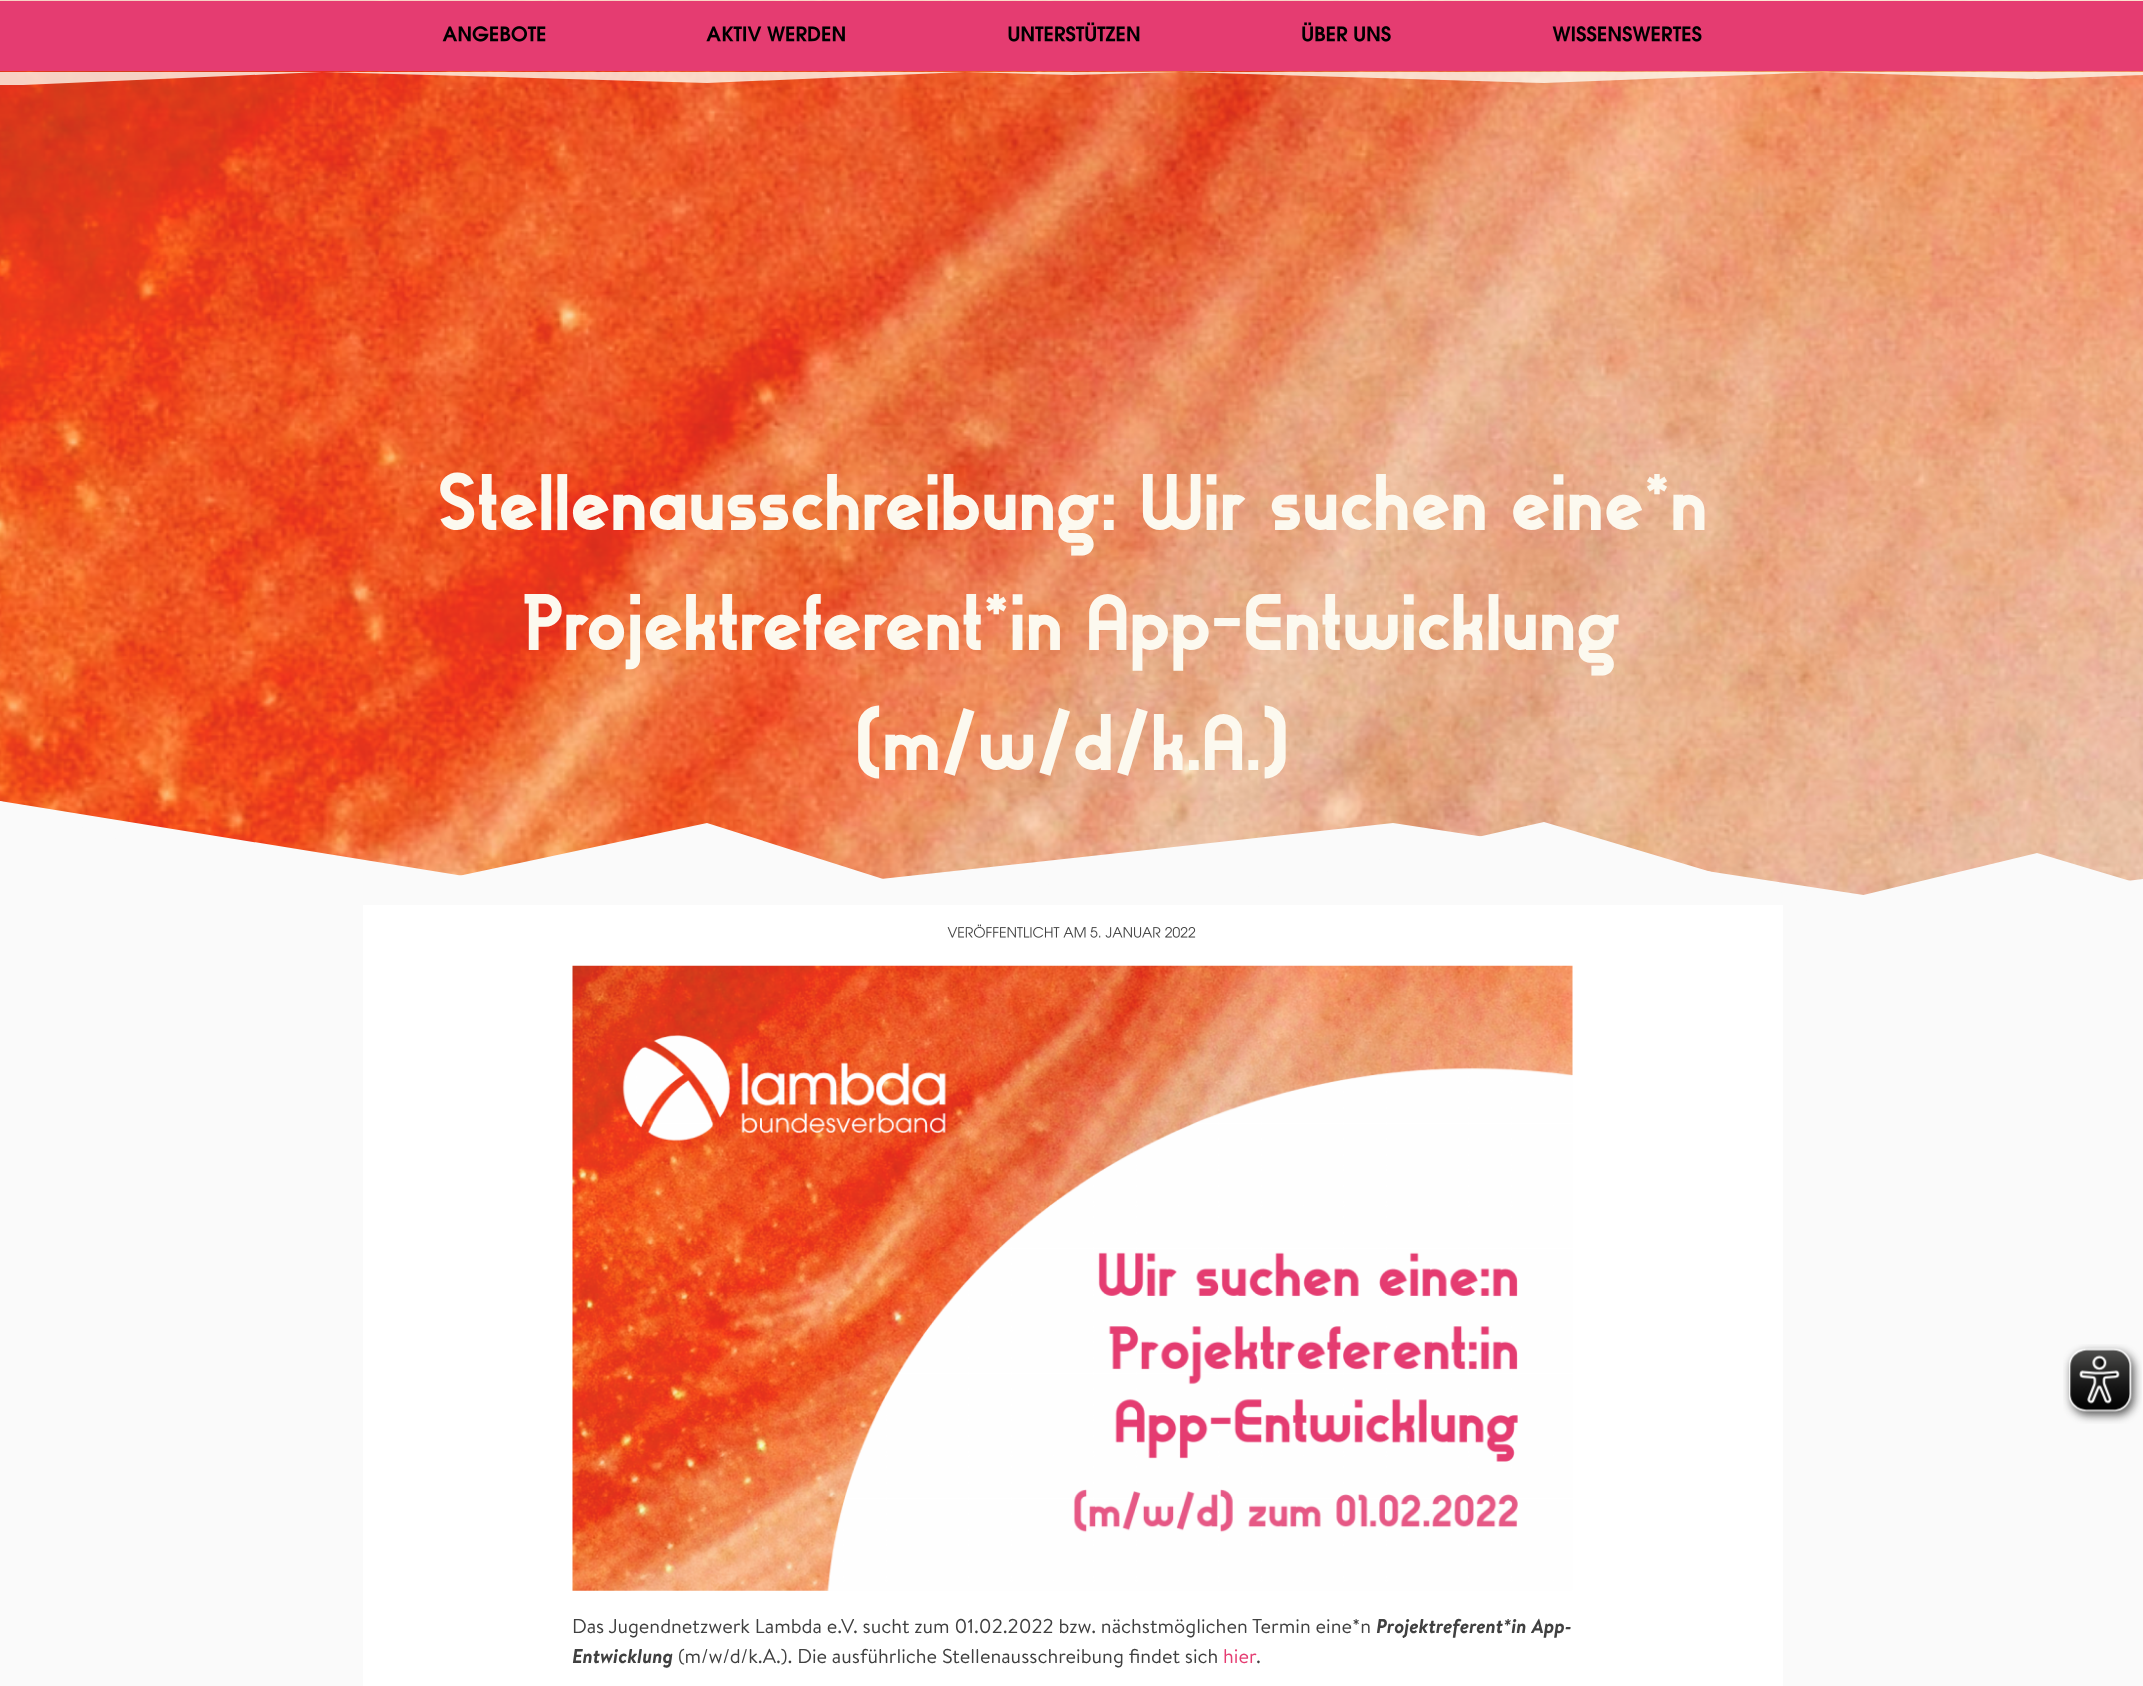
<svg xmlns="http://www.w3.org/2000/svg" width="2143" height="1686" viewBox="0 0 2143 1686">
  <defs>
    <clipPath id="clip1"><rect x="0" y="71" width="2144" height="14"/></clipPath>
  </defs>
  <rect width="100%" height="100%" fill="rgb(250,250,250)"/>
  <image x="0" y="0" width="2143" height="895" href="pic1.png"/>
  <rect x="0" y="0" width="2143" height="1" fill="rgba(252,249,239,0.8)"/>
  <rect x="0" y="1" width="2143" height="70" fill="rgb(229,60,113)"/>
  <image x="442" y="26" width="104" height="16" href="pic2.png"/>
  <image x="706" y="26" width="139" height="16" href="pic3.png"/>
  <image x="1008" y="22" width="132" height="20" href="pic4.png"/>
  <image x="1302" y="22" width="89" height="20" href="pic5.png"/>
  <image x="1552" y="26" width="150" height="16" href="pic6.png"/>
  <g clip-path="url(#clip1)">
    <path d="M0 86L322 72L707 83L965 72L1072 75L1179 72L1544 83L1822 72L2037 79L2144 75V72H0Z" fill="rgba(252,249,239,0.8)"/>
  </g>
  <g font-family="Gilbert" font-size="80" font-weight="bold" fill="rgb(252,249,239)">
    <text x="437" y="530">Stellenausschreibung: Wir suchen eine*n</text>
    <text x="523" y="650">Projektreferent*in App-Entwicklung</text>
    <text x="855" y="770">(m/w/d/k.A.)</text>
  </g>
  <path d="M0 801L643 905L1393 823L1929 905L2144 879V905H0Z" fill="rgb(250,250,250)"/>
  <path d="M0 801L322 905L707 823L965 905L1072 879L1179 905L1544 822L1822 905L2037 853L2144 885V905H0Z" fill="rgb(250,250,250)"/>
  <rect x="363" y="905" width="1420" height="781" fill="rgb(255,255,255)"/>
  <image x="947" y="924" width="139" height="14" href="pic7.png"/>
  <image x="1090" y="927" width="106" height="11" href="pic8.png"/>
  <image x="572" y="965" width="1001" height="626" href="pic9.png"/>
  <text x="572" y="1633" font-family="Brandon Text" font-size="20" fill="rgb(64,64,64)">Das Jugendnetzwerk Lambda e.V. sucht zum 01.02.2022 bzw. nächstmöglichen Termin eine*n</text>
  <g font-family="Brandon Text" font-size="20" font-weight="bold" font-style="italic" fill="rgb(64,64,64)">
    <text x="1376" y="1633">Projektreferent*in App-</text>
    <text x="572" y="1663">Entwicklung</text>
  </g>
  <text x="678" y="1663" font-family="Brandon Text" font-size="20" fill="rgb(64,64,64)">(m/w/d/k.A.). Die ausführliche Stellenausschreibung findet sich</text>
  <text x="1223" y="1663" font-family="Brandon Text" font-size="20" fill="rgb(229,60,113)">hier</text>
  <text x="1256" y="1663" font-family="Brandon Text" font-size="20" fill="rgb(64,64,64)">.</text>
  <image x="2063" y="1344" width="79" height="80" href="pic10.png"/>
</svg>
